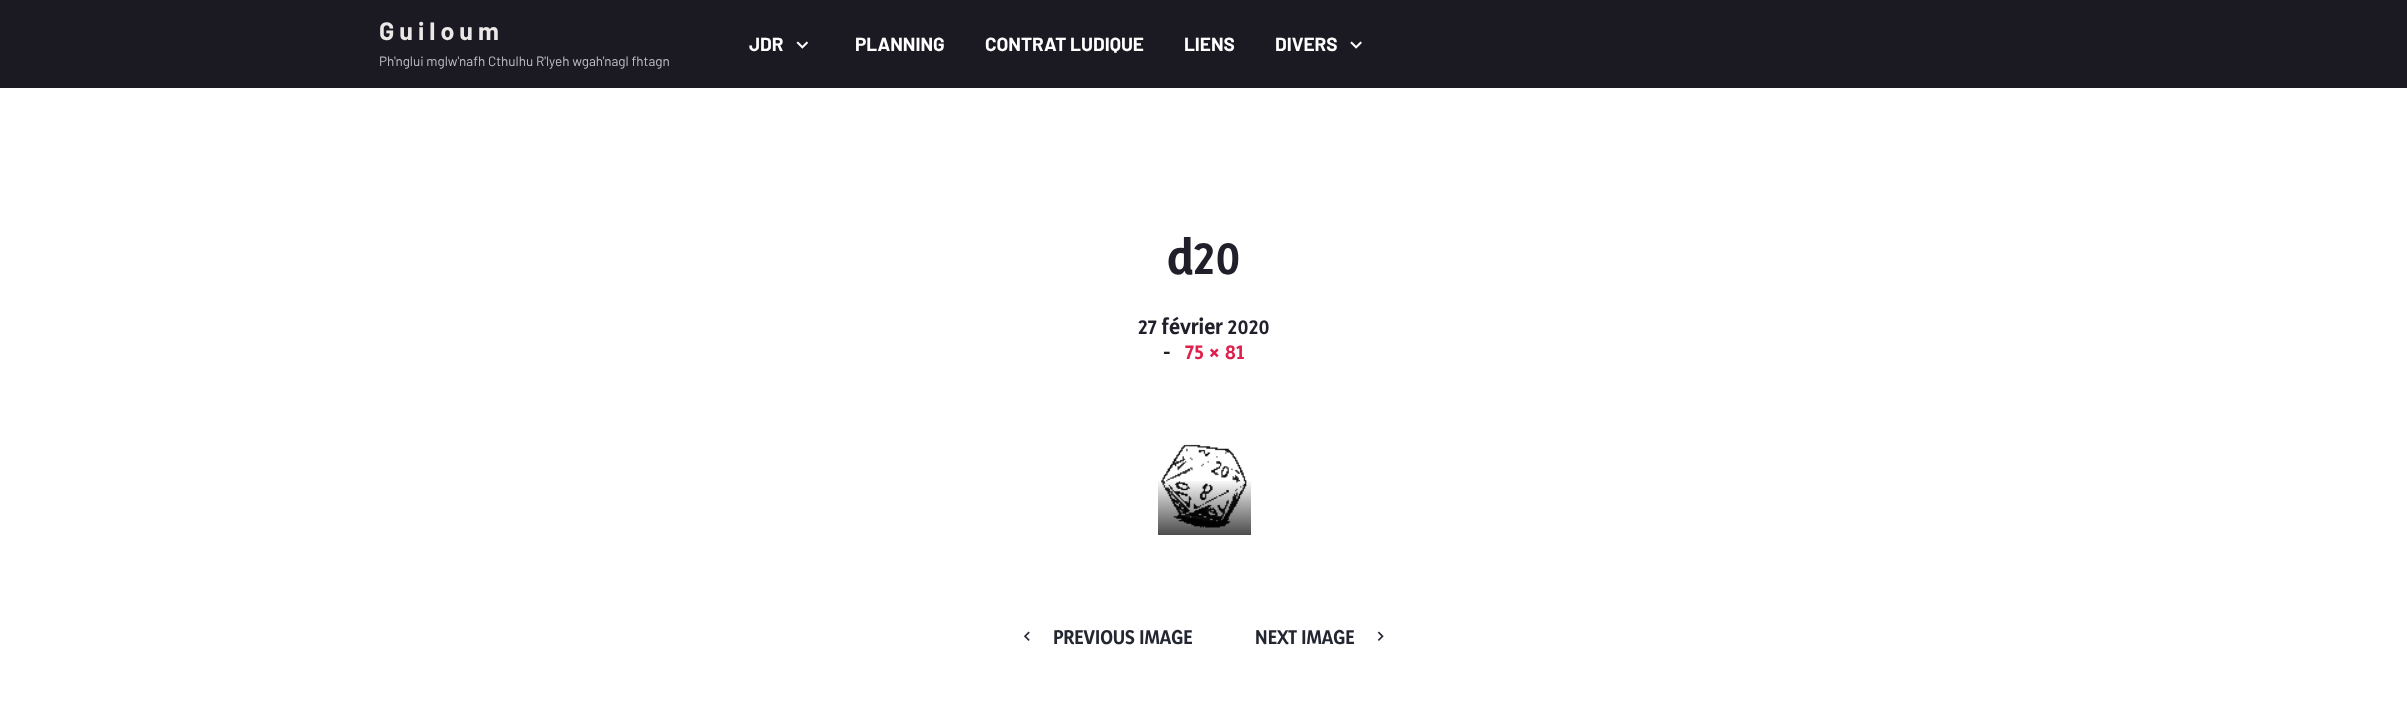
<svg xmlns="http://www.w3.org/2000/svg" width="2407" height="722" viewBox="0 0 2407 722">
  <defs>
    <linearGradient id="g1" gradientUnits="userSpaceOnUse" x1="1204" y1="535" x2="1204" y2="479"><stop offset="0" stop-color="rgb(0,0,0)" stop-opacity="0.7"/><stop offset="0.6" stop-color="rgb(0,0,0)" stop-opacity="0.3"/><stop offset="1" stop-color="rgb(0,0,0)" stop-opacity="0"/></linearGradient>
  </defs>
  <rect width="100%" height="100%" fill="rgb(255,255,255)"/>
  <rect x="0" y="0" width="2407" height="88" fill="rgb(27,26,35)"/>
  <text x="379" y="40" font-family="Barlow" font-size="25" font-weight="bold" fill="rgb(236,232,232)">G u i l o u m</text>
  <text x="379" y="66" font-family="Barlow" font-size="13.5" fill="rgb(191,192,196)">Ph'nglui mglw'nafh Cthulhu R'lyeh wgah'nagl fhtagn</text>
  <text x="749" y="51" font-family="Barlow" font-size="19" font-weight="bold" fill="rgb(255,255,255)">JDR</text>
  <image x="796" y="41" width="13" height="8" href="pic1.png"/>
  <g font-family="Barlow" font-size="19" font-weight="bold" fill="rgb(255,255,255)">
    <text x="855" y="51">PLANNING</text>
    <text x="985" y="51">CONTRAT LUDIQUE</text>
    <text x="1184" y="51">LIENS</text>
    <text x="1275" y="51">DIVERS</text>
  </g>
  <image x="1350" y="41" width="12" height="8" href="pic2.png"/>
  <text x="1167" y="274" font-family="Yaldevi" font-size="45" font-weight="bold" fill="rgb(33,31,42)">d20</text>
  <g font-family="Yaldevi" font-size="20" font-weight="bold" fill="rgb(33,31,42)">
    <text x="1138" y="334">27 février 2020</text>
    <text x="1163" y="359">-</text>
  </g>
  <text x="1185" y="359" font-family="Yaldevi" font-size="20" font-weight="bold" fill="rgb(223,32,77)">75 × 81</text>
  <image x="1161" y="444" width="86" height="84" href="pic3.png"/>
  <rect x="1158" y="481" width="93" height="54" fill="url(#g1)"/>
  <image x="1023" y="631" width="7" height="10" href="pic4.png"/>
  <g font-family="Yaldevi" font-size="18" font-weight="bold" fill="rgb(36,39,49)">
    <text x="1053" y="644">PREVIOUS IMAGE</text>
    <text x="1255" y="644">NEXT IMAGE</text>
  </g>
  <image x="1377" y="631" width="7" height="10" href="pic5.png"/>
</svg>
